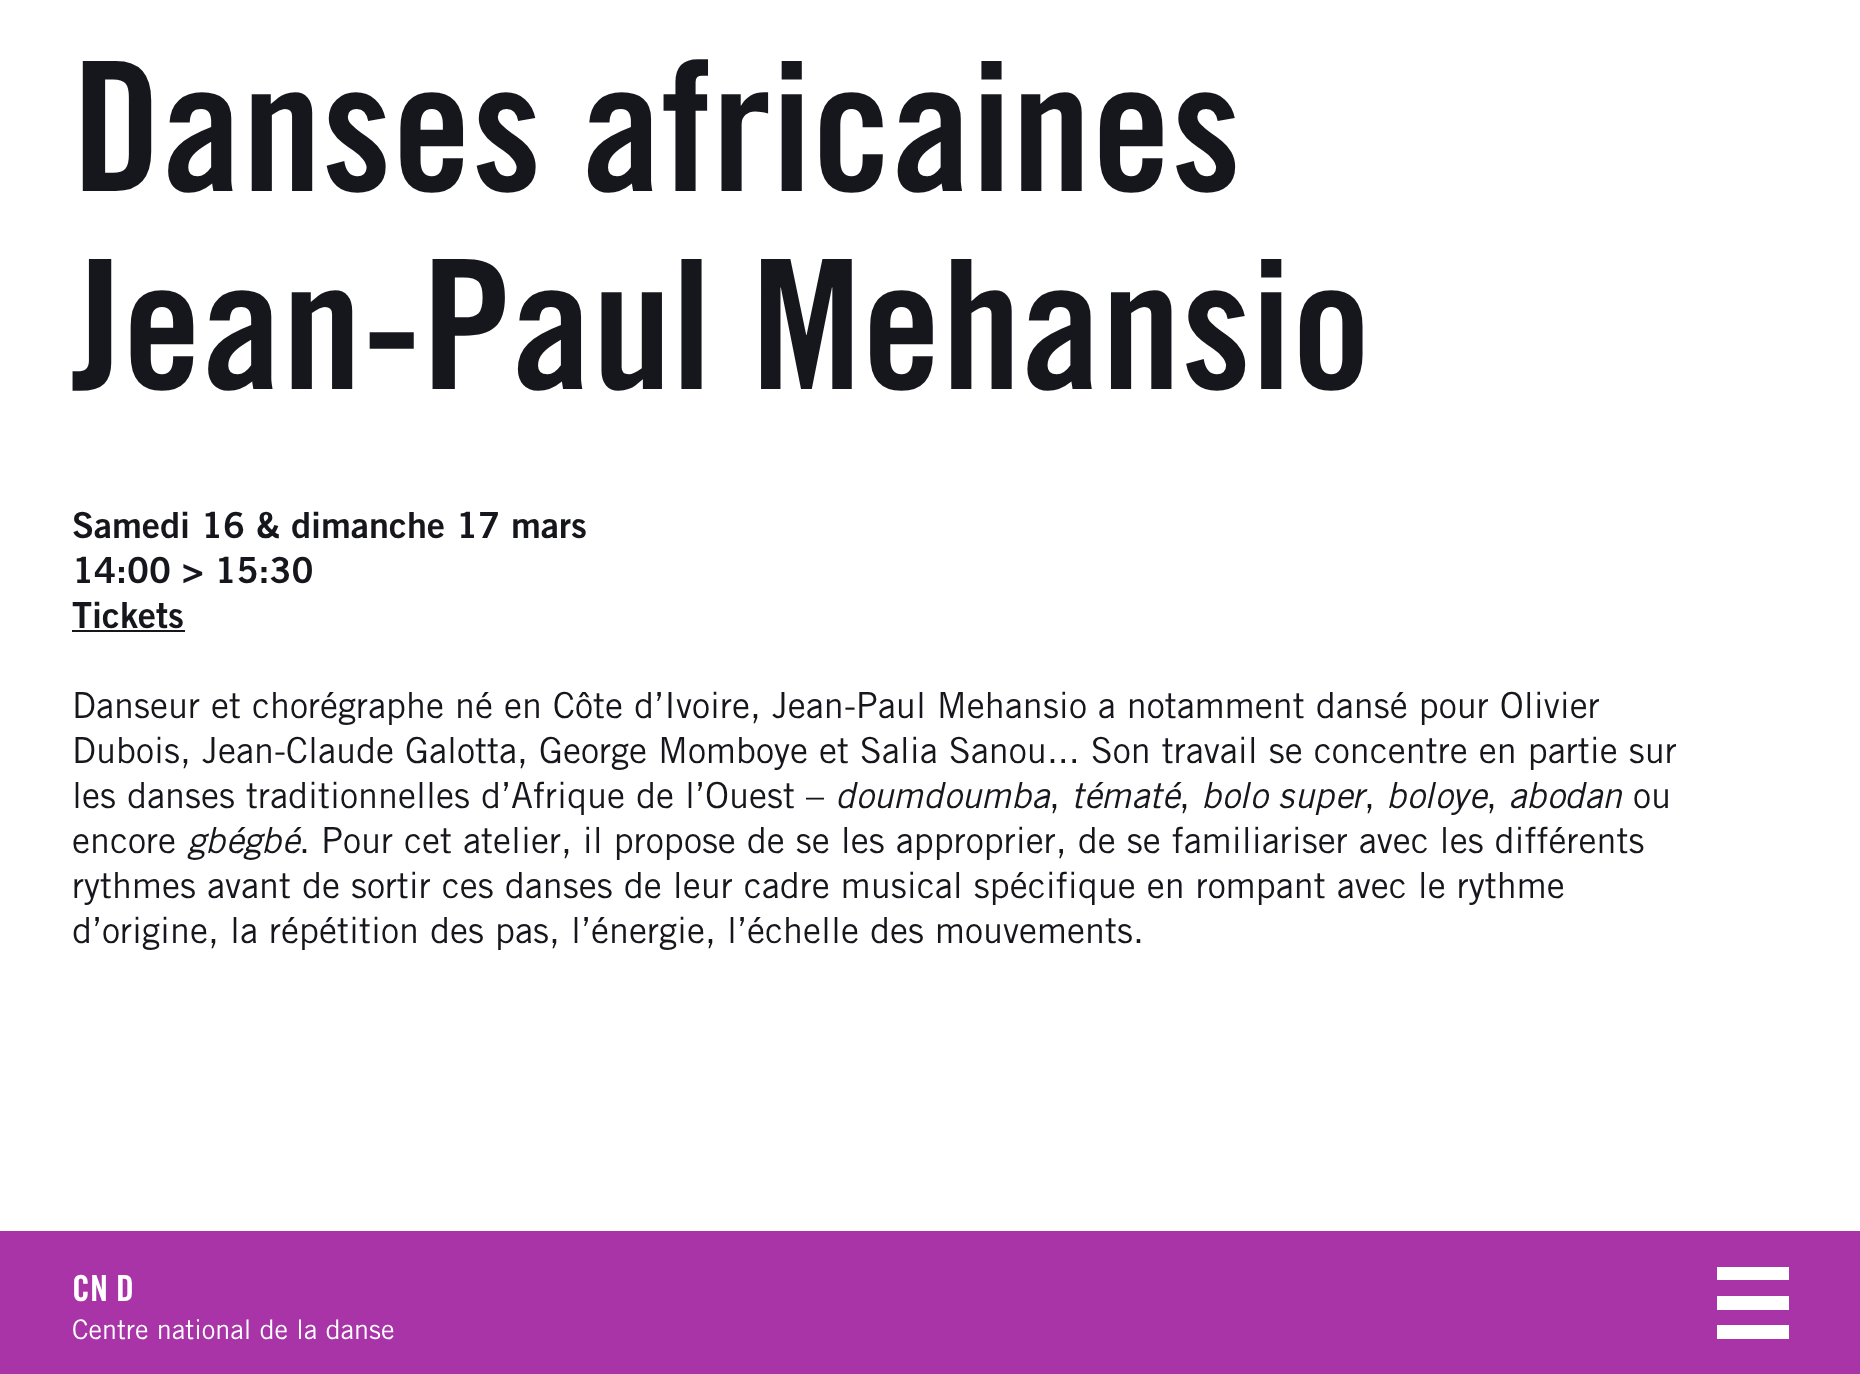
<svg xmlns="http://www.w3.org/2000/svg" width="1860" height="1374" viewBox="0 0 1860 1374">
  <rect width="100%" height="100%" fill="rgb(255,255,255)"/>
  <g font-family="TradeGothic" font-size="180" fill="rgb(22,22,29)">
    <text>
      <tspan x="72" y="191">Danses africaines</tspan>
      <tspan x="72" y="389">Jean-Paul Mehansio</tspan>
    </text>
  </g>
  <g font-family="TradeGothic" font-size="36" font-weight="bold" fill="rgb(22,22,29)">
    <text>
      <tspan x="72" y="538">Samedi 16 &amp; dimanche 17 mars</tspan>
      <tspan x="72" y="583">14:00 &gt; 15:30</tspan>
      <tspan x="72" y="628">Tickets</tspan>
    </text>
  </g>
  <rect x="72" y="630" width="113" height="2" fill="rgb(22,22,29)"/>
  <g font-family="'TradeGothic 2'" font-size="36" fill="rgb(22,22,29)">
    <text>
      <tspan x="72" y="718">Danseur et chorégraphe né en Côte d’Ivoire, Jean-Paul Mehansio a notamment dansé pour Olivier</tspan>
      <tspan x="72" y="763">Dubois, Jean-Claude Galotta, George Momboye et Salia Sanou... Son travail se concentre en partie sur</tspan>
      <tspan x="72" y="808">les danses traditionnelles d’Afrique de l’Ouest –</tspan>
    </text>
  </g>
  <text x="835" y="808" font-family="TradeGothic" font-size="36" font-style="italic" fill="rgb(22,22,29)">doumdoumba</text>
  <text x="1049" y="808" font-family="'TradeGothic 2'" font-size="36" fill="rgb(22,22,29)">,</text>
  <text x="1071" y="808" font-family="TradeGothic" font-size="36" font-style="italic" fill="rgb(22,22,29)">tématé</text>
  <text x="1179" y="808" font-family="'TradeGothic 2'" font-size="36" fill="rgb(22,22,29)">,</text>
  <text x="1201" y="808" font-family="TradeGothic" font-size="36" font-style="italic" fill="rgb(22,22,29)">bolo super</text>
  <text x="1364" y="808" font-family="'TradeGothic 2'" font-size="36" fill="rgb(22,22,29)">,</text>
  <text x="1386" y="808" font-family="TradeGothic" font-size="36" font-style="italic" fill="rgb(22,22,29)">boloye</text>
  <text x="1486" y="808" font-family="'TradeGothic 2'" font-size="36" fill="rgb(22,22,29)">,</text>
  <text x="1508" y="808" font-family="TradeGothic" font-size="36" font-style="italic" fill="rgb(22,22,29)">abodan</text>
  <g font-family="'TradeGothic 2'" font-size="36" fill="rgb(22,22,29)">
    <text x="1633" y="808">ou</text>
    <text x="72" y="853">encore</text>
  </g>
  <text x="187" y="853" font-family="TradeGothic" font-size="36" font-style="italic" fill="rgb(22,22,29)">gbégbé</text>
  <g font-family="'TradeGothic 2'" font-size="36" fill="rgb(22,22,29)">
    <text x="299" y="853">. Pour cet atelier, il propose de se les approprier, de se familiariser avec les différents</text>
    <text>
      <tspan x="72" y="898">rythmes avant de sortir ces danses de leur cadre musical spécifique en rompant avec le rythme</tspan>
      <tspan x="72" y="943">d’origine, la répétition des pas, l’énergie, l’échelle des mouvements.</tspan>
    </text>
  </g>
  <rect x="0" y="1231" width="1860" height="143" fill="rgb(168,52,167)"/>
  <text x="72" y="1301" font-family="TradeGothic" font-size="36" fill="rgb(255,255,255)">CN D</text>
  <path d="M1717 1325H1789V1339H1717ZM1717 1267H1789V1280H1717ZM1717 1296H1789V1310H1717Z" fill="rgb(255,255,255)"/>
  <text x="72" y="1339" font-family="'TradeGothic 2'" font-size="27" fill="rgb(255,255,255)">Centre national de la danse</text>
</svg>
